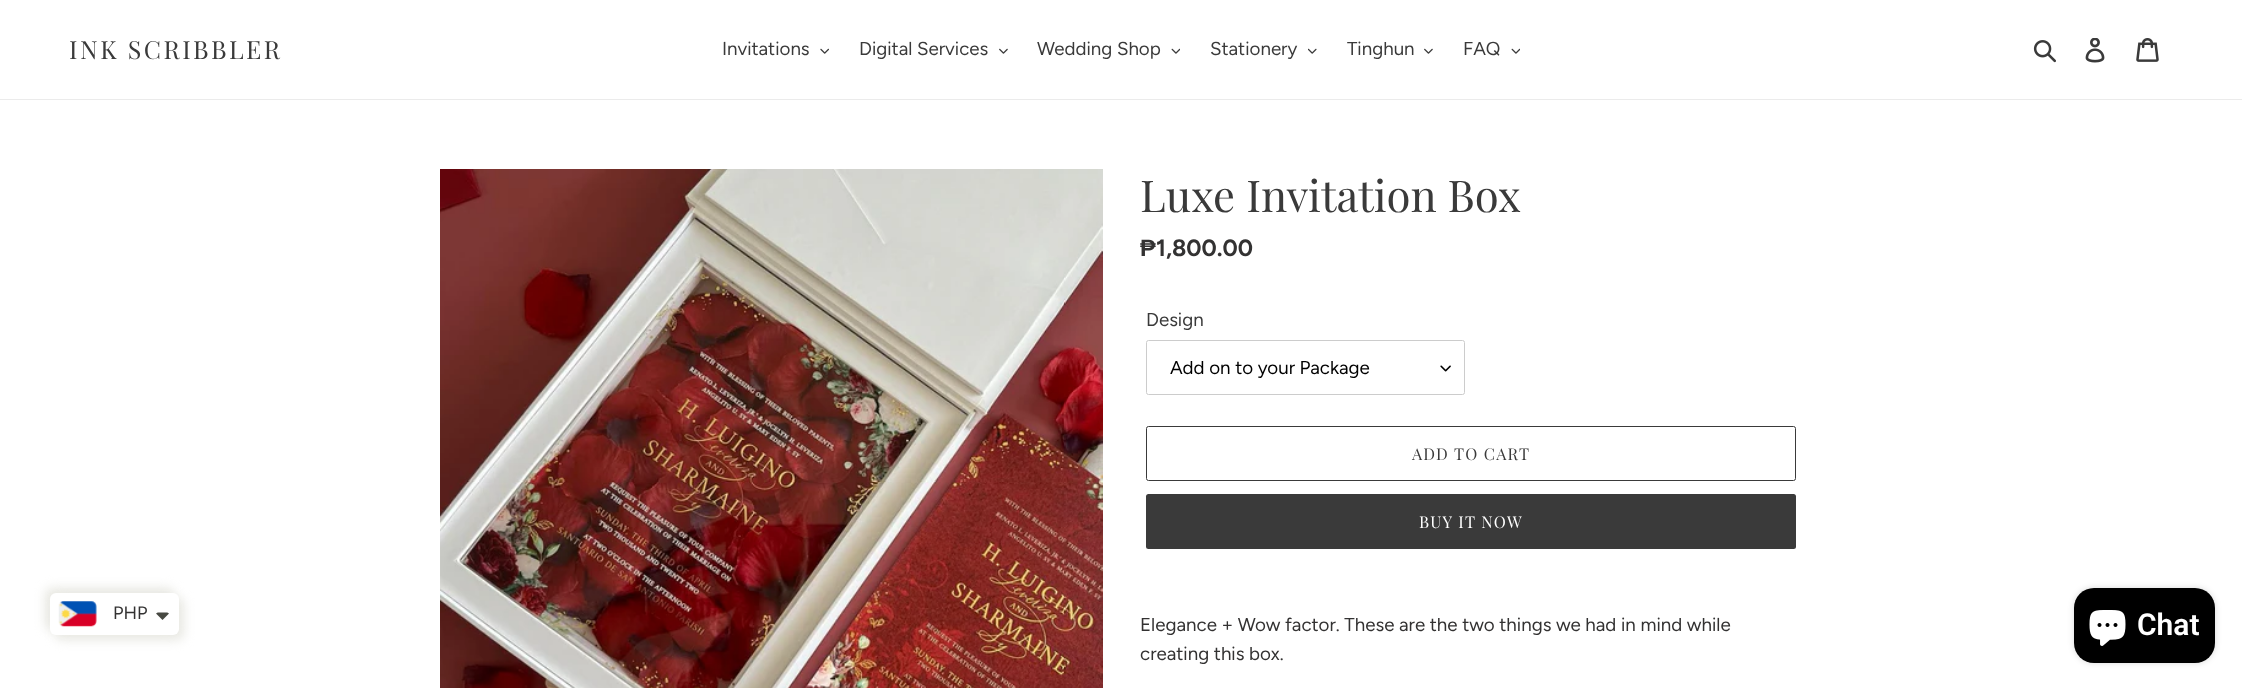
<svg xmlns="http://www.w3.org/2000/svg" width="2242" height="688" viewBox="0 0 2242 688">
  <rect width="100%" height="100%" fill="rgb(255,255,255)"/>
  <rect x="0" y="99" width="2242" height="1" fill="rgb(235,235,235)"/>
  <text x="69" y="59" font-family="Playfair Display" font-size="25" letter-spacing="2.5" fill="rgb(58,58,58)">INK SCRIBBLER</text>
  <text x="722" y="55" font-family="Figtree" font-size="18.75" fill="rgb(58,58,58)">Invitations</text>
  <image x="820" y="48" width="9" height="6" href="pic1.png"/>
  <text x="859" y="55" font-family="Figtree" font-size="18.75" fill="rgb(58,58,58)">Digital Services</text>
  <image x="999" y="48" width="9" height="6" href="pic2.png"/>
  <text x="1037" y="55" font-family="Figtree" font-size="18.75" fill="rgb(58,58,58)">Wedding Shop</text>
  <image x="1171" y="48" width="9" height="6" href="pic3.png"/>
  <text x="1210" y="55" font-family="Figtree" font-size="18.75" fill="rgb(58,58,58)">Stationery</text>
  <image x="1308" y="48" width="9" height="6" href="pic4.png"/>
  <text x="1347" y="55" font-family="Figtree" font-size="18.75" fill="rgb(58,58,58)">Tinghun</text>
  <image x="1424" y="48" width="9" height="6" href="pic2.png"/>
  <text x="1463" y="55" font-family="Figtree" font-size="18.75" fill="rgb(58,58,58)">FAQ</text>
  <image x="1511" y="48" width="9" height="6" href="pic3.png"/>
  <image x="2033" y="40" width="23" height="23" href="pic5.png"/>
  <image x="2085" y="38" width="20" height="25" href="pic6.png"/>
  <image x="2136" y="38" width="23" height="24" href="pic7.png"/>
  <rect x="45" y="588" width="129" height="42" rx="6" fill="rgb(232,232,226)" filter="blur(5.5px)"/>
  <rect x="55" y="598" width="129" height="42" rx="6" fill="rgb(232,232,226)" filter="blur(5.5px)"/>
  <rect x="50" y="593" width="129" height="42" rx="6" fill="rgb(255,255,255)"/>
  <image x="58" y="601" width="39" height="26" href="pic8.png"/>
  <text x="113" y="619" font-family="Figtree" font-size="18" fill="rgb(51,50,50)">PHP</text>
  <path d="M159 612.5C157.5 612.5 156.5 613 156 613.5L162.5 620L169 613.5C168.5 613 167.5 612.5 166 612.5Z" fill="rgb(71,73,66)"/>
  <image x="440" y="169" width="663" height="519" href="pic9.png"/>
  <text x="1140" y="212" font-family="Playfair Display" font-size="43.75" fill="rgb(58,58,58)">Luxe Invitation Box</text>
  <text x="1140" y="256" font-family="Liberation Sans" font-size="23.5" font-weight="bold" fill="rgb(51,50,50)">₱</text>
  <text x="1156" y="256" font-family="Figtree" font-size="23.5" font-weight="bold" fill="rgb(51,50,50)">1,800.00</text>
  <text x="1146" y="326" font-family="Figtree" font-size="18.75" fill="rgb(58,58,58)">Design</text>
  <image x="1440" y="365" width="11" height="7" href="pic10.png"/>
  <rect x="1146.5" y="340.5" width="318" height="54" rx="2" fill="none" stroke="rgb(204,204,204)"/>
  <text x="1170" y="374" font-family="Figtree" font-size="18.75" fill="rgb(0,0,0)">Add on to your Package</text>
  <rect x="1146.5" y="426.5" width="649" height="54" rx="2" fill="none" stroke="rgb(58,58,58)"/>
  <text x="1412" y="460" font-family="Playfair Display" font-size="16.25" letter-spacing="1.25" fill="rgb(58,58,58)">ADD TO CART</text>
  <rect x="1146" y="494" width="650" height="55" rx="2.5" fill="rgb(58,58,58)"/>
  <text x="1419" y="528" font-family="Playfair Display" font-size="16.25" letter-spacing="1.25" fill="rgb(255,255,255)">BUY IT NOW</text>
  <g font-family="Figtree" font-size="18.75" fill="rgb(51,50,50)">
    <text>
      <tspan x="1140" y="631">Elegance + Wow factor. These are the two things we had in mind while</tspan>
      <tspan x="1140" y="660">creating this box.</tspan>
    </text>
  </g>
  <rect x="2074" y="588" width="141" height="75" rx="20" fill="rgba(0,0,0,0.15)" filter="blur(3px)"/>
  <rect x="2074" y="588" width="141" height="75" rx="20" fill="rgb(0,0,0)"/>
  <image x="2089" y="610" width="37" height="36" href="pic11.png"/>
  <text x="2137" y="635" font-family="Roboto" font-size="30" font-weight="600" fill="rgb(255,255,255)">Chat</text>
</svg>
